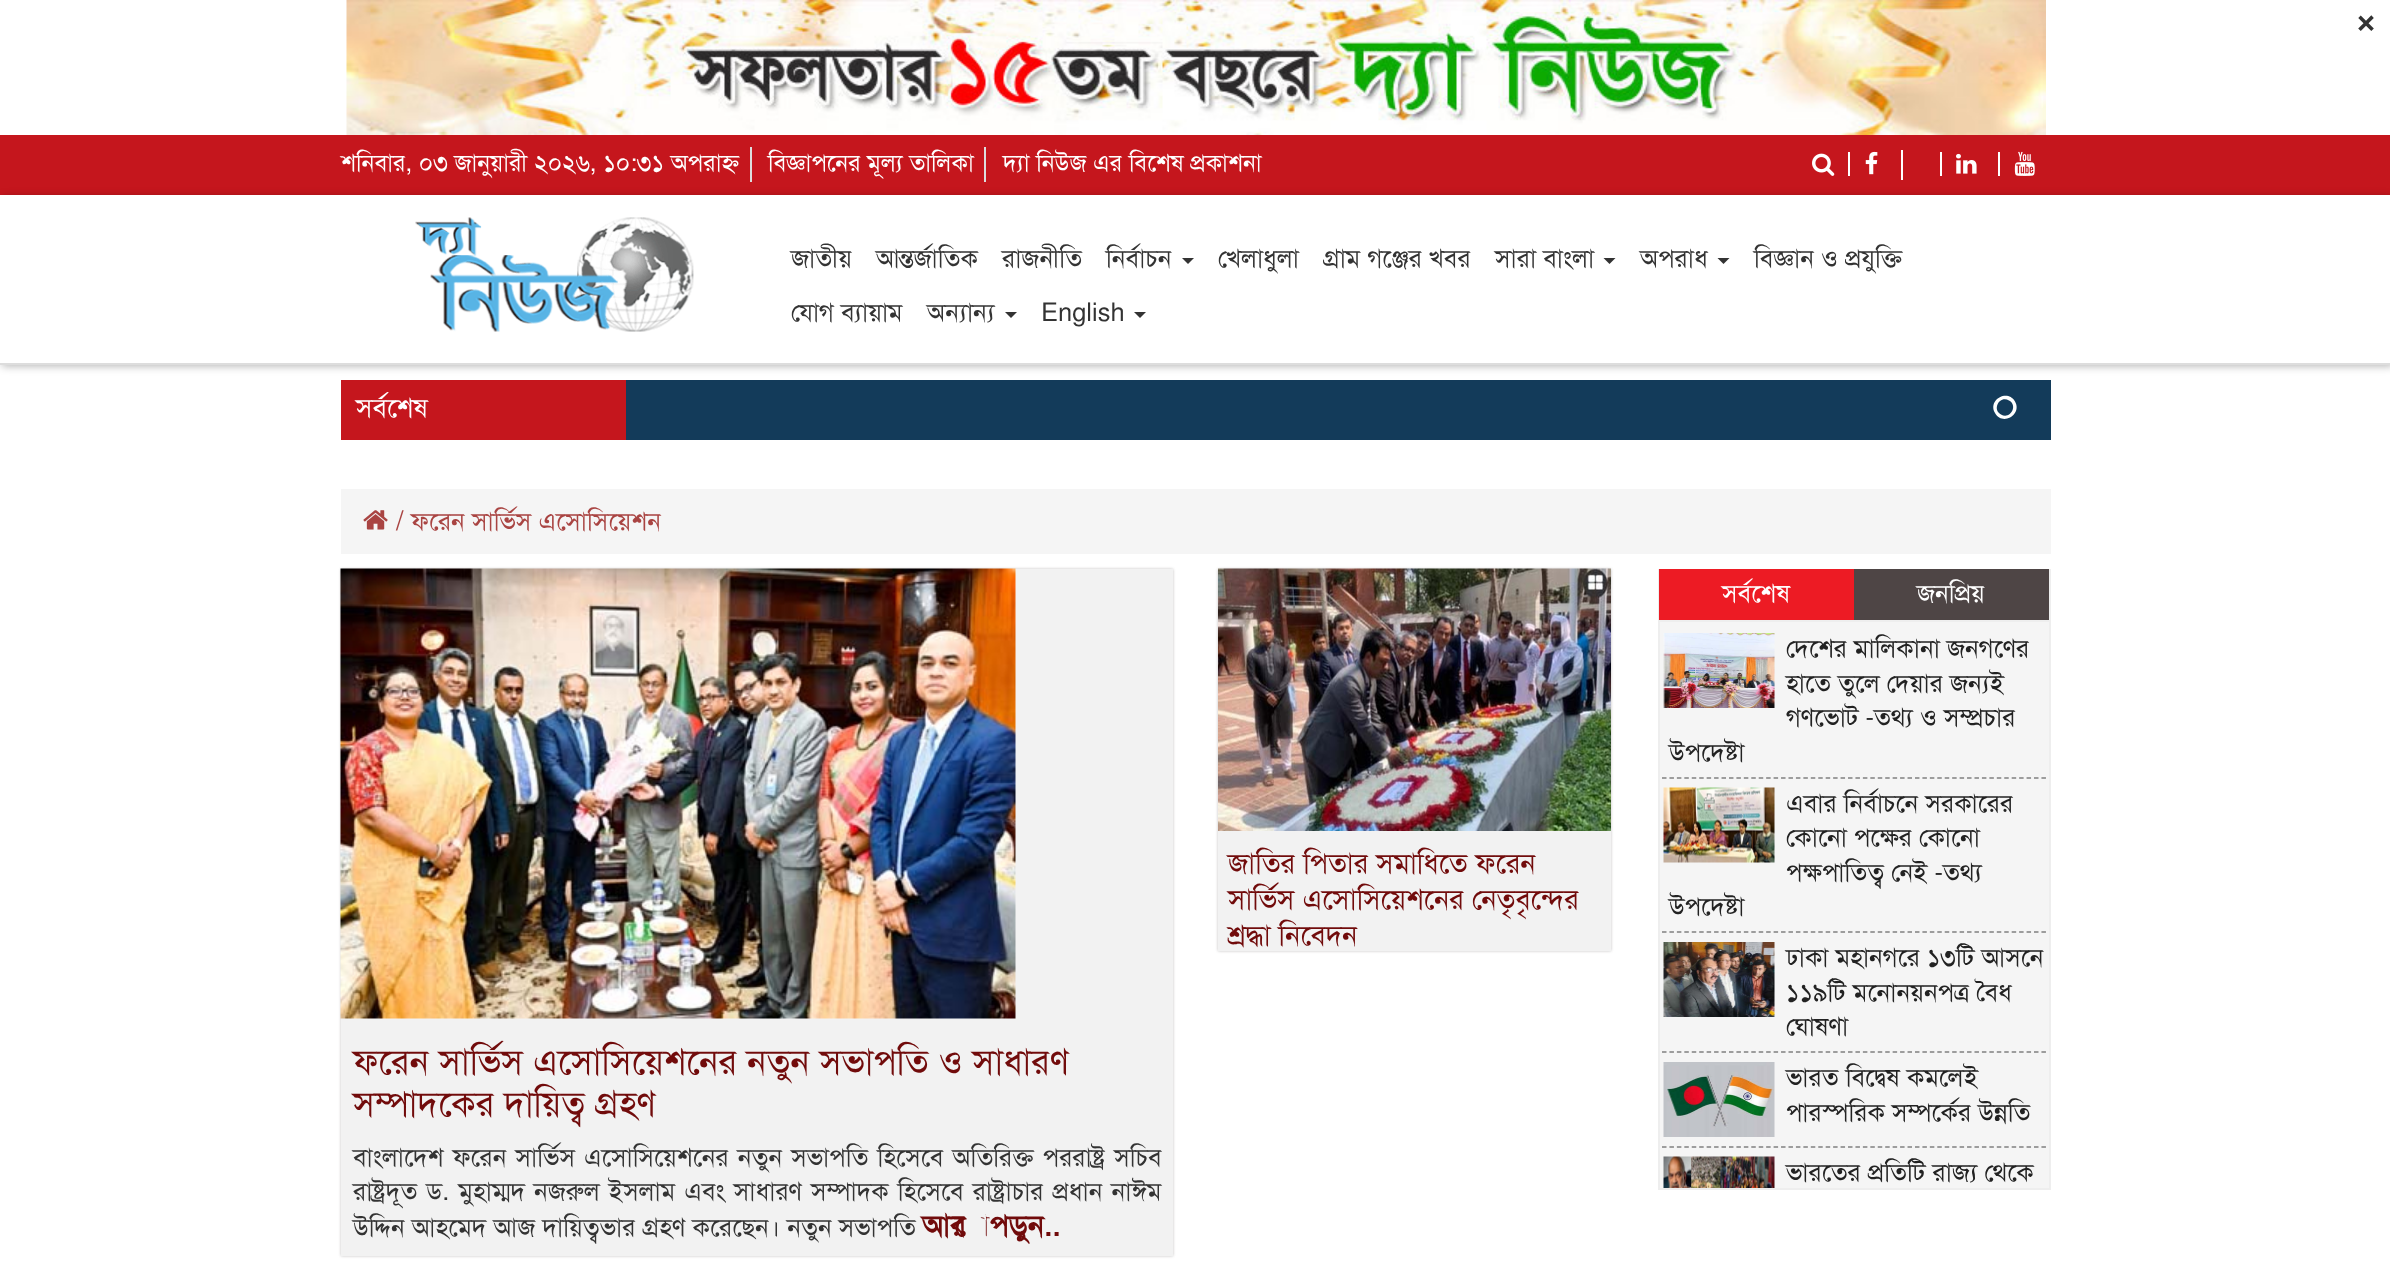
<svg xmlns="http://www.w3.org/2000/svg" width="2390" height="1266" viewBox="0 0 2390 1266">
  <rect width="100%" height="100%" fill="rgb(255,255,255)"/>
  <image x="346" y="0" width="1700" height="135" href="pic1.png"/>
  <text x="2355" y="32" font-family="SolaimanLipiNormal" font-size="36" font-weight="bold" fill="rgb(51,51,51)">×</text>
  <rect x="0" y="135" width="2390" height="60" fill="rgb(197,22,29)"/>
  <rect x="750" y="147" width="2" height="35" fill="rgb(221,221,221)"/>
  <text x="341" y="171" font-family="SolaimanLipiNormal" font-size="24" fill="rgb(255,255,255)">শনিবার, ০৩ জানুয়ারী ২০২৬, ১০:৩১ অপরাহ্ন</text>
  <rect x="984" y="147" width="2" height="35" fill="rgb(221,221,221)"/>
  <g font-family="SolaimanLipiNormal" font-size="24" fill="rgb(255,255,255)">
    <text x="768" y="171">বিজ্ঞাপনের মূল্য তালিকা</text>
    <text x="1003" y="171">দ্যা নিউজ এর বিশেষ প্রকাশনা</text>
  </g>
  <image x="1812" y="153" width="23" height="23" href="pic2.png"/>
  <rect x="1848" y="152" width="2" height="24" fill="rgb(255,255,255)"/>
  <image x="1865" y="151" width="13" height="24" href="pic3.png"/>
  <rect x="1901" y="150" width="2" height="30" fill="rgb(255,255,255)"/>
  <rect x="1940" y="152" width="2" height="24" fill="rgb(255,255,255)"/>
  <image x="1956" y="153" width="21" height="21" href="pic4.png"/>
  <rect x="1998" y="152" width="2" height="24" fill="rgb(255,255,255)"/>
  <image x="2014" y="151" width="21" height="25" href="pic5.png"/>
  <rect x="2" y="197" width="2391" height="169" fill="rgba(0,0,0,0.3)" filter="blur(4.5px)"/>
  <rect x="0" y="195" width="2390" height="168" fill="rgb(255,255,255)"/>
  <rect x="0" y="363" width="2390" height="2" fill="rgb(221,221,221)"/>
  <image x="415" y="217" width="279" height="115" href="pic6.png"/>
  <g font-family="SolaimanLipiNormal" font-size="25.5" fill="rgb(51,51,51)">
    <text x="791" y="267">জাতীয়</text>
    <text x="876" y="267">আন্তর্জাতিক</text>
    <text x="1002" y="267">রাজনীতি</text>
    <text x="1106" y="267">নির্বাচন</text>
  </g>
  <path d="M1182 258H1194L1188 264Z" fill="rgb(51,51,51)"/>
  <g font-family="SolaimanLipiNormal" font-size="25.5" fill="rgb(51,51,51)">
    <text x="1218" y="267">খেলাধুলা</text>
    <text x="1323" y="267">গ্রাম গঞ্জের খবর</text>
    <text x="1495" y="267">সারা বাংলা</text>
  </g>
  <path d="M1603.5 258H1615.5L1609.5 264Z" fill="rgb(51,51,51)"/>
  <text x="1640" y="267" font-family="SolaimanLipiNormal" font-size="25.5" fill="rgb(51,51,51)">অপরাধ</text>
  <path d="M1717.5 258H1729.5L1723.5 264Z" fill="rgb(51,51,51)"/>
  <g font-family="SolaimanLipiNormal" font-size="25.5" fill="rgb(51,51,51)">
    <text x="1754" y="267">বিজ্ঞান ও প্রযুক্তি</text>
    <text x="791" y="321">যোগ ব্যায়াম</text>
    <text x="927" y="321">অন্যান্য</text>
  </g>
  <path d="M1005 312H1017L1011 318Z" fill="rgb(51,51,51)"/>
  <text x="1041" y="321" font-family="SolaimanLipiNormal" font-size="25.5" fill="rgb(51,51,51)">English</text>
  <path d="M1134 312H1146L1140 318Z" fill="rgb(51,51,51)"/>
  <rect x="341" y="380" width="285" height="60" fill="rgb(197,22,29)"/>
  <text x="356" y="417" font-family="SolaimanLipiNormal" font-size="27" fill="rgb(255,255,255)">সর্বশেষ</text>
  <rect x="626" y="380" width="1425" height="60" fill="rgb(19,59,90)"/>
  <path d="M2009 400.5C2000 395 1991.5 409 2001 414.5C2010 420 2018.5 405.5 2009 400.5ZM2015 401.5C2022.5 414.5 2002.5 426.5 1995 413C1987.5 400 2007.5 388.5 2015 401.5Z" fill="rgb(255,255,255)"/>
  <rect x="341" y="489" width="1710" height="65" fill="rgb(245,245,245)"/>
  <image x="363" y="510" width="25" height="20" href="pic7.png"/>
  <text x="396" y="530" font-family="SolaimanLipiNormal" font-size="27" fill="rgb(169,68,66)">/</text>
  <text x="411" y="530" font-family="SolaimanLipiNormal" font-size="25.5" fill="rgb(169,68,66)">ফরেন সার্ভিস এসোসিয়েশন</text>
  <rect x="1218" y="569" width="393" height="382" fill="rgb(193,192,192)" filter="blur(1.5px)"/>
  <rect x="1218" y="831" width="393" height="120" fill="rgb(242,242,242)"/>
  <image x="1218" y="568" width="393" height="263" href="pic8.png"/>
  <g font-family="SolaimanLipiNormal" font-size="28.5" fill="rgb(113,11,11)">
    <text>
      <tspan x="1228" y="873">জাতির পিতার সমাধিতে ফরেন</tspan>
      <tspan x="1228" y="909">সার্ভিস এসোসিয়েশনের নেতৃবৃন্দের</tspan>
      <tspan x="1228" y="945">শ্রদ্ধা নিবেদন</tspan>
    </text>
  </g>
  <rect x="341" y="569" width="832" height="687" fill="rgb(193,192,192)" filter="blur(1.5px)"/>
  <rect x="341" y="569" width="832" height="687" fill="rgb(242,242,242)"/>
  <image x="340" y="568" width="676" height="451" href="pic9.png"/>
  <g font-family="SolaimanLipiNormal" font-size="36" fill="rgb(113,11,11)">
    <text>
      <tspan x="353" y="1074">ফরেন সার্ভিস এসোসিয়েশনের নতুন সভাপতি ও সাধারণ</tspan>
      <tspan x="353" y="1116">সম্পাদকের দায়িত্ব গ্রহণ</tspan>
    </text>
  </g>
  <g font-family="SolaimanLipiNormal" font-size="25.5" fill="rgb(51,51,51)">
    <text>
      <tspan x="353" y="1166" word-spacing="2">বাংলাদেশ ফরেন সার্ভিস এসোসিয়েশনের নতুন সভাপতি হিসেবে অতিরিক্ত পররাষ্ট্র সচিব</tspan>
      <tspan x="353" y="1200" word-spacing="1.9">রাষ্ট্রদূত ড. মুহাম্মদ নজরুল ইসলাম এবং সাধারণ সম্পাদক হিসেবে রাষ্ট্রাচার প্রধান নাঈম</tspan>
      <tspan x="353" y="1236">উদ্দিন আহমেদ আজ দায়িত্বভার গ্রহণ করেছেন। নতুন সভাপতি</tspan>
    </text>
  </g>
  <text x="922" y="1236" font-family="SolaimanLipiNormal" font-size="30" font-weight="bold" fill="rgb(113,11,11)">আরো পড়ুন..</text>
  <rect x="1854" y="569" width="195" height="51" fill="rgb(78,69,69)"/>
  <rect x="2049" y="569" width="2" height="51" fill="rgb(238,238,238)"/>
  <rect x="1658" y="569" width="1" height="51" fill="rgb(238,238,238)"/>
  <rect x="1659" y="569" width="195" height="51" fill="rgb(237,27,36)"/>
  <g font-family="SolaimanLipiNormal" font-size="25.5" fill="rgb(255,255,255)">
    <text x="1722" y="602">সর্বশেষ</text>
    <text x="1917" y="602">জনপ্রিয়</text>
  </g>
  <rect x="1659" y="621" width="391" height="568" fill="rgb(245,245,245)" stroke="rgb(238,238,238)" stroke-width="2"/>
  <path d="M1662 778H2046" fill="none" stroke="rgb(128,128,128)" stroke-width="1.5" stroke-dasharray="4.5 2.94"/>
  <image x="1663" y="633" width="112" height="75" href="pic10.png"/>
  <g font-family="SolaimanLipiNormal" font-size="25.5" fill="rgb(34,34,34)">
    <text>
      <tspan x="1786" y="657">দেশের মালিকানা জনগণের</tspan>
      <tspan x="1786" y="692">হাতে তুলে দেয়ার জন্যই</tspan>
      <tspan x="1786" y="726">গণভোট -তথ্য ও সম্প্রচার</tspan>
    </text>
    <text x="1669" y="761">উপদেষ্টা</text>
  </g>
  <path d="M1662 932H2046" fill="none" stroke="rgb(128,128,128)" stroke-width="1.5" stroke-dasharray="4.5 2.94"/>
  <image x="1663" y="787" width="112" height="76" href="pic11.png"/>
  <g font-family="SolaimanLipiNormal" font-size="25.5" fill="rgb(34,34,34)">
    <text>
      <tspan x="1786" y="812">এবার নির্বাচনে সরকারের</tspan>
      <tspan x="1786" y="846">কোনো পক্ষের কোনো</tspan>
      <tspan x="1786" y="881">পক্ষপাতিত্ব নেই -তথ্য</tspan>
    </text>
    <text x="1669" y="915">উপদেষ্টা</text>
  </g>
  <path d="M1662 1052H2046" fill="none" stroke="rgb(128,128,128)" stroke-width="1.5" stroke-dasharray="4.5 2.94"/>
  <image x="1663" y="942" width="112" height="75" href="pic12.png"/>
  <g font-family="SolaimanLipiNormal" font-size="25.5" fill="rgb(34,34,34)">
    <text>
      <tspan x="1786" y="966">ঢাকা মহানগরে ১৩টি আসনে</tspan>
      <tspan x="1786" y="1001">১১৯টি মনোনয়নপত্র বৈধ</tspan>
      <tspan x="1786" y="1035">ঘোষণা</tspan>
    </text>
  </g>
  <path d="M1662 1147H2046" fill="none" stroke="rgb(128,128,128)" stroke-width="1.5" stroke-dasharray="4.5 2.94"/>
  <image x="1663" y="1062" width="112" height="75" href="pic13.png"/>
  <g font-family="SolaimanLipiNormal" font-size="25.5" fill="rgb(34,34,34)">
    <text>
      <tspan x="1786" y="1086">ভারত বিদ্বেষ কমলেই</tspan>
      <tspan x="1786" y="1121">পারস্পরিক সম্পর্কের উন্নতি</tspan>
    </text>
  </g>
  <image x="1663" y="1156" width="112" height="32" href="pic14.png"/>
  <text x="1786" y="1181" font-family="SolaimanLipiNormal" font-size="25.5" fill="rgb(34,34,34)">ভারতের প্রতিটি রাজ্য থেকে</text>
</svg>
